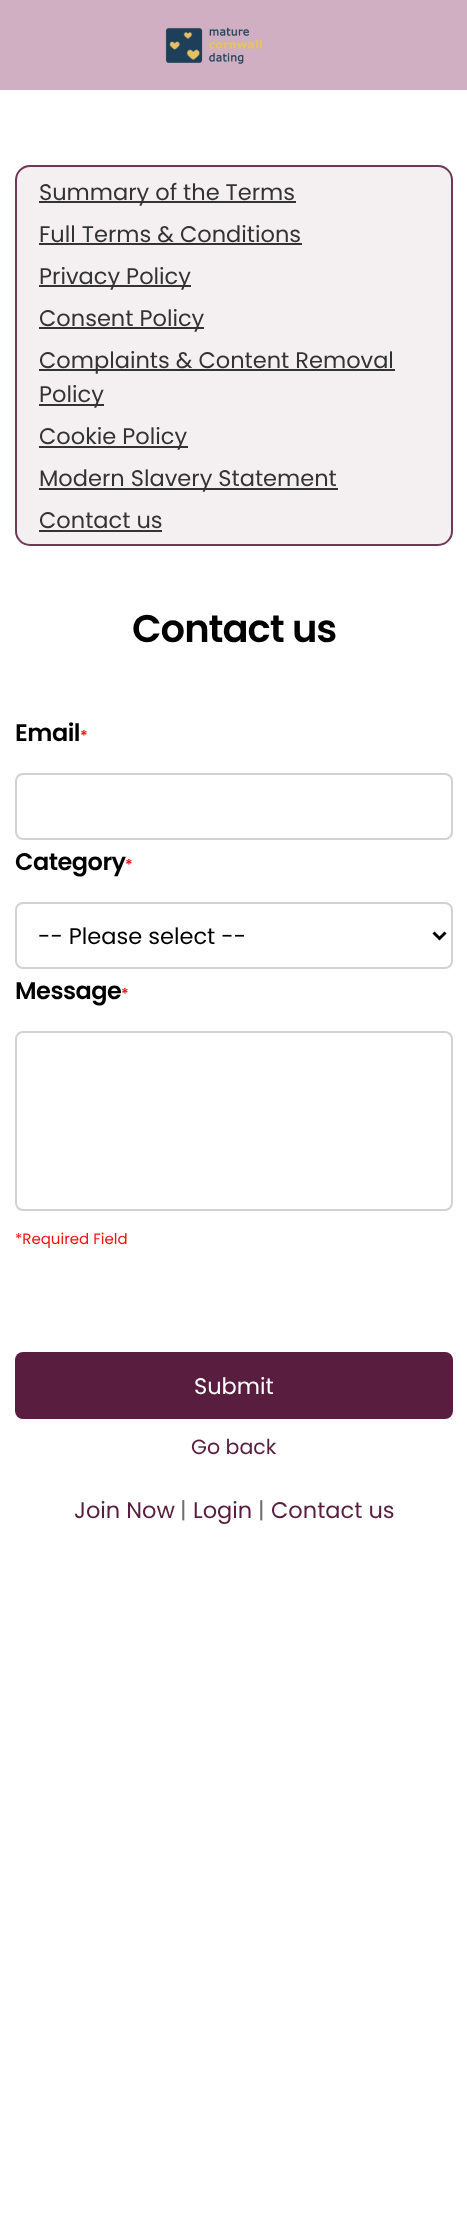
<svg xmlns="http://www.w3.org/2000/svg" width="467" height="2226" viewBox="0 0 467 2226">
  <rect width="100%" height="100%" fill="rgb(255,255,255)"/>
  <rect x="0" y="0" width="467" height="90" fill="rgb(207,175,193)"/>
  <image x="165" y="27" width="98" height="37" href="pic1.png"/>
  <rect x="15" y="165" width="438" height="381" rx="15" fill="rgb(244,240,242)"/>
  <rect x="16" y="166" width="436" height="379" rx="14" fill="none" stroke="rgba(89,30,63,0.87)" stroke-width="2"/>
  <rect x="39" y="201" width="257" height="2" fill="rgb(51,51,51)"/>
  <g font-family="Poppins" font-size="22.5" fill="rgb(51,51,51)">
    <text>
      <tspan x="39" y="200">Summary of the Terms</tspan>
      <tspan x="39" y="242">Full Terms &amp; Conditions</tspan>
    </text>
  </g>
  <rect x="39" y="243" width="263" height="2" fill="rgb(51,51,51)"/>
  <rect x="39" y="285" width="152" height="2" fill="rgb(51,51,51)"/>
  <text x="39" y="284" font-family="Poppins" font-size="22.5" fill="rgb(51,51,51)">Privacy Policy</text>
  <rect x="39" y="327" width="165" height="2" fill="rgb(51,51,51)"/>
  <text x="39" y="326" font-family="Poppins" font-size="22.5" fill="rgb(51,51,51)">Consent Policy</text>
  <rect x="39" y="369" width="356" height="2" fill="rgb(51,51,51)"/>
  <text x="39" y="368" font-family="Poppins" font-size="22.5" fill="rgb(51,51,51)">Complaints &amp; Content Removal</text>
  <rect x="39" y="404" width="65" height="2" fill="rgb(51,51,51)"/>
  <text x="39" y="402" font-family="Poppins" font-size="22.5" fill="rgb(51,51,51)">Policy</text>
  <rect x="39" y="446" width="149" height="2" fill="rgb(51,51,51)"/>
  <text x="39" y="444" font-family="Poppins" font-size="22.5" fill="rgb(51,51,51)">Cookie Policy</text>
  <rect x="39" y="488" width="299" height="2" fill="rgb(51,51,51)"/>
  <g font-family="Poppins" font-size="22.5" fill="rgb(51,51,51)">
    <text>
      <tspan x="39" y="486">Modern Slavery Statement</tspan>
      <tspan x="39" y="528">Contact us</tspan>
    </text>
  </g>
  <rect x="39" y="530" width="123" height="2" fill="rgb(51,51,51)"/>
  <text x="132" y="642" font-family="Poppins" font-size="38.5" font-weight="600" letter-spacing="-1" fill="rgb(0,0,0)">Contact us</text>
  <text x="15" y="741" font-family="Poppins" font-size="24" font-weight="600" letter-spacing="-0.5" fill="rgb(0,0,0)">Email</text>
  <text x="80" y="741" font-family="Poppins" font-size="15" font-weight="600" letter-spacing="-0.5" fill="rgb(243,18,18)">*</text>
  <rect x="16" y="774" width="436" height="65" rx="7" fill="none" stroke="rgb(210,210,210)" stroke-width="2"/>
  <text x="15" y="870" font-family="Poppins" font-size="24" font-weight="600" letter-spacing="-0.5" fill="rgb(0,0,0)">Category</text>
  <text x="125" y="870" font-family="Poppins" font-size="15" font-weight="600" letter-spacing="-0.5" fill="rgb(243,18,18)">*</text>
  <rect x="16" y="903" width="436" height="65" rx="7" fill="none" stroke="rgb(210,210,210)" stroke-width="2"/>
  <path d="M433.5 932.5L439.5 938.5L445.5 932.5" fill="none" stroke="rgb(0,0,0)" stroke-width="3"/>
  <text x="38" y="944" font-family="Poppins" font-size="22.5" fill="rgb(0,0,0)">-- Please select --</text>
  <text x="15" y="999" font-family="Poppins" font-size="24" font-weight="600" letter-spacing="-0.5" fill="rgb(0,0,0)">Message</text>
  <text x="121" y="999" font-family="Poppins" font-size="15" font-weight="600" letter-spacing="-0.5" fill="rgb(243,18,18)">*</text>
  <rect x="16" y="1032" width="436" height="178" rx="7" fill="none" stroke="rgb(210,210,210)" stroke-width="2"/>
  <text x="15" y="1244" font-family="Poppins" font-size="15" fill="rgb(243,18,18)">*Required Field</text>
  <rect x="15" y="1352" width="438" height="67" rx="8" fill="rgb(89,30,63)"/>
  <text x="194" y="1394" font-family="Poppins" font-size="22.5" fill="rgb(255,255,255)">Submit</text>
  <text x="191" y="1454" font-family="Poppins" font-size="20.5" fill="rgb(89,30,63)">Go back</text>
  <text x="74" y="1518" font-family="Poppins" font-size="22.5" fill="rgb(89,30,63)">Join Now</text>
  <text x="180" y="1518" font-family="Poppins" font-size="22.5" fill="rgb(112,112,112)">|</text>
  <text x="193" y="1518" font-family="Poppins" font-size="22.5" fill="rgb(89,30,63)">Login</text>
  <text x="258" y="1518" font-family="Poppins" font-size="22.5" fill="rgb(112,112,112)">|</text>
  <text x="271" y="1518" font-family="Poppins" font-size="22.5" fill="rgb(89,30,63)">Contact us</text>
</svg>
